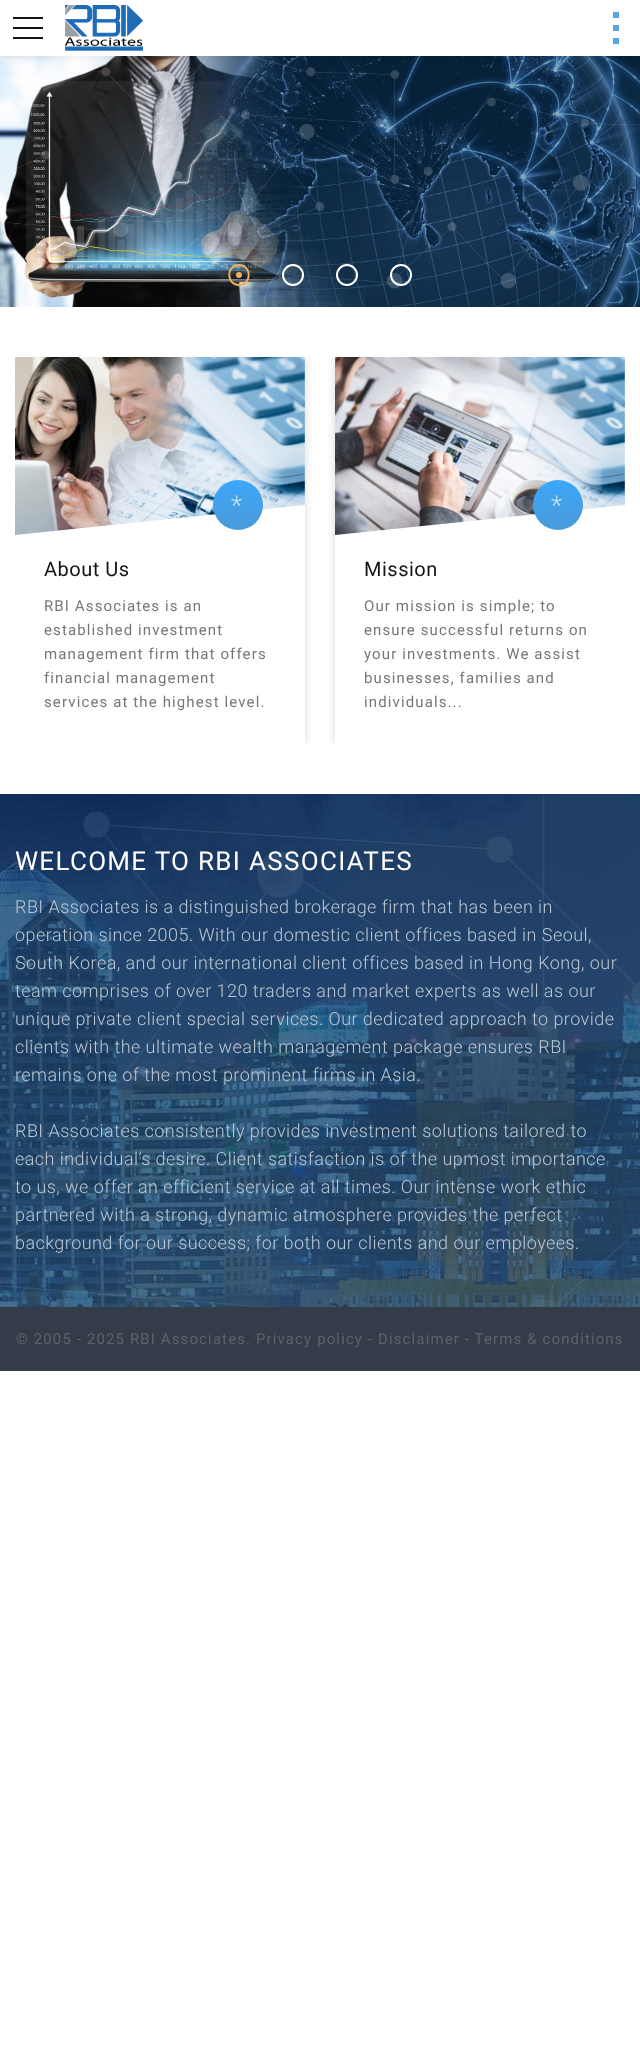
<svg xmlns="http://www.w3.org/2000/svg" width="640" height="2054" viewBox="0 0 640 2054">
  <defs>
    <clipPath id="clip1"><rect x="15" y="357" width="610" height="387"/></clipPath>
    <clipPath id="clip2"><rect x="15" y="357" width="290" height="387"/></clipPath>
    <linearGradient id="g1" gradientUnits="userSpaceOnUse" x1="238" y1="530" x2="238" y2="480"><stop offset="0" stop-color="rgb(74,154,216)"/><stop offset="1" stop-color="rgb(60,167,250)"/></linearGradient>
    <clipPath id="clip3"><rect x="335" y="357" width="290" height="387"/></clipPath>
    <linearGradient id="g2" gradientUnits="userSpaceOnUse" x1="558" y1="530" x2="558" y2="480"><stop offset="0" stop-color="rgb(74,154,216)"/><stop offset="1" stop-color="rgb(60,167,250)"/></linearGradient>
  </defs>
  <rect width="100%" height="100%" fill="rgb(255,255,255)"/>
  <image x="0" y="56" width="366" height="251" href="pic2.png"/>
  <image x="366" y="56" width="274" height="251" href="pic3.png"/>
  <rect x="0" y="0" width="640" height="56" fill="rgba(0,0,0,0.1)" filter="blur(5px)"/>
  <rect x="0" y="0" width="640" height="56" fill="rgb(255,255,255)"/>
  <rect x="13" y="27" width="30" height="2" fill="rgb(21,21,21)"/>
  <rect x="13" y="17" width="30" height="2" fill="rgb(21,21,21)"/>
  <rect x="13" y="37" width="30" height="2" fill="rgb(21,21,21)"/>
  <image x="64" y="5" width="80" height="46" href="pic1.png"/>
  <rect x="613" y="12" width="6" height="6" fill="rgb(87,164,224)"/>
  <rect x="613" y="25" width="6" height="6" fill="rgb(87,164,224)"/>
  <rect x="613" y="38" width="6" height="6" fill="rgb(87,164,224)"/>
  <path d="M239 265C252 265 252 285 239 285C226 285 226 265 239 265" fill="none" stroke="rgb(238,175,94)" stroke-width="2" stroke-linecap="round" stroke-linejoin="round"/>
  <circle cx="239" cy="275" r="3" fill="rgb(238,175,94)"/>
  <circle cx="293" cy="275" r="10" fill="none" stroke="rgb(255,255,255)" stroke-width="2"/>
  <circle cx="347" cy="275" r="10" fill="none" stroke="rgb(255,255,255)" stroke-width="2"/>
  <circle cx="401" cy="275" r="10" fill="none" stroke="rgb(255,255,255)" stroke-width="2"/>
  <g clip-path="url(#clip1)">
    <rect x="15" y="357" width="290" height="387" fill="rgba(0,0,0,0.15)" filter="blur(5px)"/>
  </g>
  <image x="15" y="357" width="290" height="178" href="pic4.png"/>
  <g clip-path="url(#clip2)">
    <path d="M15 535L305 505V744L15 774Z" fill="rgb(255,255,255)"/>
  </g>
  <circle cx="238" cy="505" r="25" fill="url(#g1)"/>
  <text x="231" y="514" font-family="Roboto" font-size="26" font-weight="300" letter-spacing="2" fill="rgb(198,227,249)">*</text>
  <text x="44" y="576" font-family="Roboto" font-size="20" letter-spacing="0.5" fill="rgb(21,21,21)">About Us</text>
  <g font-family="Roboto" font-size="15" letter-spacing="1.12" fill="rgb(119,119,119)">
    <text>
      <tspan x="44" y="611">RBI Associates is an</tspan>
      <tspan x="44" y="635">established investment</tspan>
      <tspan x="44" y="659">management firm that offers</tspan>
      <tspan x="44" y="683">financial management</tspan>
      <tspan x="44" y="707">services at the highest level.</tspan>
    </text>
  </g>
  <g clip-path="url(#clip1)">
    <rect x="335" y="357" width="290" height="387" fill="rgba(0,0,0,0.15)" filter="blur(5px)"/>
  </g>
  <image x="335" y="357" width="290" height="178" href="pic5.png"/>
  <g clip-path="url(#clip3)">
    <path d="M335 535L625 505V744L335 774Z" fill="rgb(255,255,255)"/>
  </g>
  <circle cx="558" cy="505" r="25" fill="url(#g2)"/>
  <text x="551" y="514" font-family="Roboto" font-size="26" font-weight="300" letter-spacing="2" fill="rgb(198,227,249)">*</text>
  <text x="364" y="576" font-family="Roboto" font-size="20" letter-spacing="0.5" fill="rgb(21,21,21)">Mission</text>
  <g font-family="Roboto" font-size="15" letter-spacing="1.12" fill="rgb(119,119,119)">
    <text>
      <tspan x="364" y="611">Our mission is simple; to</tspan>
      <tspan x="364" y="635">ensure successful returns on</tspan>
      <tspan x="364" y="659">your investments. We assist</tspan>
      <tspan x="364" y="683">businesses, families and</tspan>
      <tspan x="364" y="707">individuals...</tspan>
    </text>
  </g>
  <image x="0" y="794" width="640" height="513" href="pic6.png"/>
  <text x="15" y="870" font-family="Roboto" font-size="26" letter-spacing="1.3" fill="rgb(255,255,255)">WELCOME TO RBI ASSOCIATES</text>
  <g font-family="Roboto" font-size="18" font-weight="300" letter-spacing="0.45" fill="rgb(188,199,211)">
    <text>
      <tspan x="15" y="913">RBI Associates is a distinguished brokerage firm that has been in</tspan>
      <tspan x="15" y="941">operation since 2005. With our domestic client offices based in Seoul,</tspan>
      <tspan x="15" y="969">South Korea, and our international client offices based in Hong Kong, our</tspan>
      <tspan x="15" y="997">team comprises of over 120 traders and market experts as well as our</tspan>
      <tspan x="15" y="1025">unique private client special services. Our dedicated approach to provide</tspan>
      <tspan x="15" y="1053">clients with the ultimate wealth management package ensures RBI</tspan>
      <tspan x="15" y="1081">remains one of the most prominent firms in Asia.</tspan>
    </text>
    <text>
      <tspan x="15" y="1137">RBI Associates consistently provides investment solutions tailored to</tspan>
      <tspan x="15" y="1165">each individual’s desire. Client satisfaction is of the upmost importance</tspan>
      <tspan x="15" y="1193">to us, we offer an efficient service at all times. Our intense work ethic</tspan>
      <tspan x="15" y="1221">partnered with a strong, dynamic atmosphere provides the perfect</tspan>
      <tspan x="15" y="1249">background for our success; for both our clients and our employees.</tspan>
    </text>
  </g>
  <rect x="0" y="1307" width="640" height="64" fill="rgb(52,60,73)"/>
  <text x="16" y="1344" font-family="Roboto" font-size="15" letter-spacing="1.12" fill="rgb(93,99,109)">© 2005 - 2025 RBI Associates. Privacy policy - Disclaimer - Terms &amp; conditions</text>
</svg>
